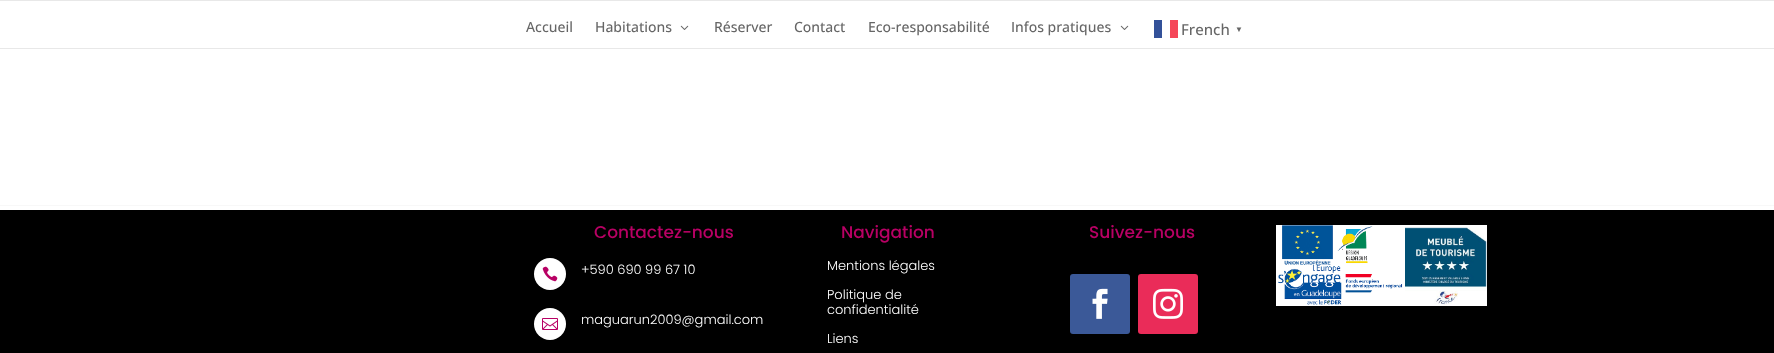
<svg xmlns="http://www.w3.org/2000/svg" width="1774" height="353" viewBox="0 0 1774 353">
  <rect width="100%" height="100%" fill="rgb(255,255,255)"/>
  <rect x="0" y="0" width="1774" height="1" fill="rgb(232,232,232)"/>
  <rect x="0" y="48" width="1774" height="1" fill="rgb(232,232,232)"/>
  <g font-family="Open Sans" font-size="14" font-weight="500" fill="rgb(102,102,102)">
    <text x="526" y="32">Accueil</text>
    <text x="595" y="32">Habitations</text>
  </g>
  <image x="680" y="25" width="9" height="5" href="pic1.png"/>
  <g font-family="Open Sans" font-size="14" font-weight="500" fill="rgb(102,102,102)">
    <text x="714" y="32">Réserver</text>
    <text x="794" y="32">Contact</text>
    <text x="868" y="32">Eco-responsabilité</text>
    <text x="1011" y="32">Infos pratiques</text>
  </g>
  <image x="1120" y="25" width="9" height="5" href="pic1.png"/>
  <rect x="1154" y="20" width="8" height="18" fill="rgb(51,81,153)"/>
  <rect x="1170" y="20" width="8" height="18" fill="rgb(245,70,89)"/>
  <text x="1181" y="35" font-family="Open Sans" font-size="15" font-weight="500" fill="rgb(102,102,102)">French</text>
  <text x="1235" y="32" font-family="Liberation Sans" font-size="8" font-weight="bold" fill="rgb(102,102,102)">▼</text>
  <rect x="0" y="205" width="1774" height="1" fill="rgb(248,248,248)"/>
  <rect x="0" y="210" width="1774" height="143" fill="rgb(0,0,0)"/>
  <text x="594" y="238" font-family="Poppins" font-size="17" font-weight="500" fill="rgb(184,0,100)">Contactez-nous</text>
  <circle cx="550" cy="274" r="16" fill="rgb(255,255,255)"/>
  <image x="542" y="266" width="16" height="16" href="pic2.png"/>
  <text x="581" y="274" font-family="Poppins" font-size="13" font-weight="300" fill="rgb(255,255,255)">+590 690 99 67 10</text>
  <circle cx="550" cy="324" r="16" fill="rgb(255,255,255)"/>
  <image x="542" y="318" width="16" height="12" href="pic3.png"/>
  <text x="581" y="324" font-family="Poppins" font-size="13" font-weight="300" fill="rgb(255,255,255)">maguarun2009@gmail.com</text>
  <text x="841" y="238" font-family="Poppins" font-size="17" font-weight="500" fill="rgb(184,0,100)">Navigation</text>
  <g font-family="Poppins" font-size="13" font-weight="300" fill="rgb(255,255,255)">
    <text x="827" y="270">Mentions légales</text>
    <text>
      <tspan x="827" y="299">Politique de</tspan>
      <tspan x="827" y="314">confidentialité</tspan>
    </text>
    <text x="827" y="343">Liens</text>
  </g>
  <text x="1089" y="238" font-family="Poppins" font-size="17" font-weight="500" fill="rgb(184,0,100)">Suivez-nous</text>
  <rect x="1070" y="274" width="60" height="60" rx="3" fill="rgb(59,89,152)"/>
  <image x="1092" y="288" width="16" height="31" href="pic4.png"/>
  <rect x="1138" y="274" width="60" height="60" rx="3" fill="rgb(234,44,89)"/>
  <image x="1153" y="288" width="30" height="31" href="pic5.png"/>
  <image x="1276" y="225" width="211" height="81" href="pic6.png"/>
</svg>
